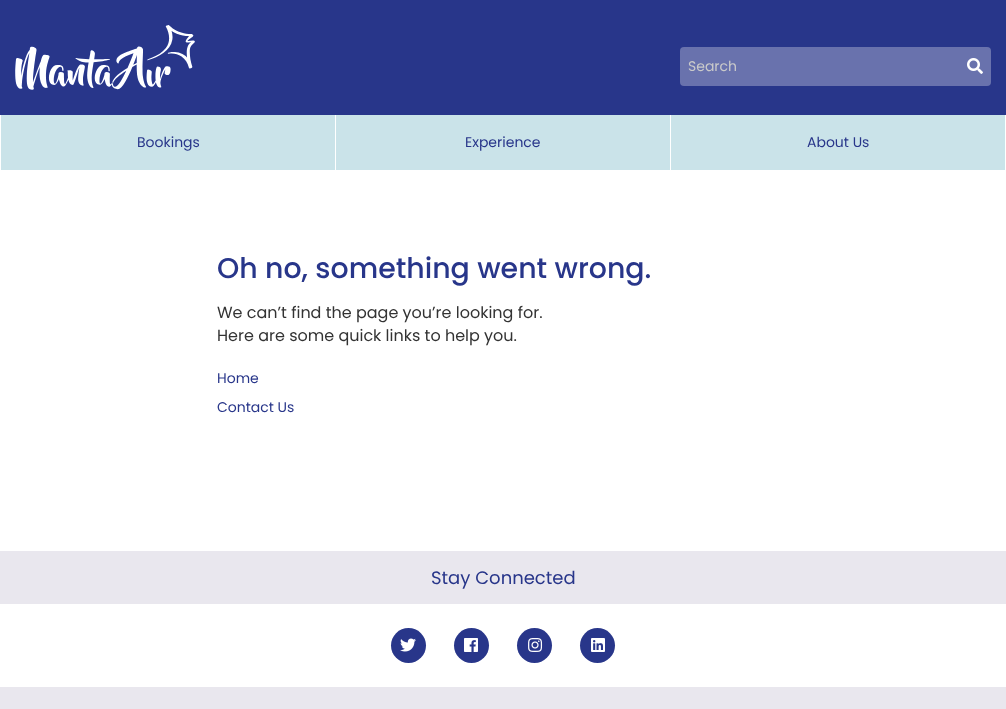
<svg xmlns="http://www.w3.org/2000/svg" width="1006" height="709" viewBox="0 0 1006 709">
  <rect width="100%" height="100%" fill="rgb(255,255,255)"/>
  <rect x="0" y="0" width="1006" height="115" fill="rgb(40,54,138)"/>
  <image x="15" y="25" width="180" height="65" href="pic1.png"/>
  <rect x="680" y="47" width="311" height="39" rx="4" fill="rgb(105,114,173)"/>
  <text x="688" y="71" font-family="Poppins" font-size="14" fill="rgb(202,202,202)">Search</text>
  <image x="967" y="58" width="16" height="16" href="pic2.png"/>
  <rect x="1" y="115" width="1004" height="55" fill="rgb(202,227,233)"/>
  <rect x="335" y="115" width="1" height="55" fill="rgb(255,255,255)"/>
  <text x="137" y="147" font-family="Poppins" font-size="14" fill="rgb(40,54,138)">Bookings</text>
  <rect x="670" y="115" width="1" height="55" fill="rgb(255,255,255)"/>
  <g font-family="Poppins" font-size="14" fill="rgb(40,54,138)">
    <text x="465" y="147">Experience</text>
    <text x="807" y="147">About Us</text>
  </g>
  <text x="217" y="278" font-family="Poppins" font-size="28.4" font-weight="500" fill="rgb(40,54,138)">Oh no, something went wrong.</text>
  <g font-family="Poppins" font-size="16" fill="rgb(51,51,51)">
    <text>
      <tspan x="217" y="318">We can’t find the page you’re looking for.</tspan>
      <tspan x="217" y="341">Here are some quick links to help you.</tspan>
    </text>
  </g>
  <g font-family="Poppins" font-size="14" fill="rgb(40,54,138)">
    <text x="217" y="383">Home</text>
    <text x="217" y="412">Contact Us</text>
  </g>
  <rect x="0" y="551" width="1006" height="158" fill="rgb(233,231,238)"/>
  <text x="431" y="584" font-family="Poppins" font-size="18" fill="rgb(40,54,138)">Stay Connected</text>
  <rect x="0" y="604" width="1006" height="83" fill="rgb(255,255,255)"/>
  <circle cx="408.5" cy="645.5" r="17.5" fill="rgb(40,54,138)"/>
  <image x="400" y="638" width="16" height="14" href="pic3.png"/>
  <circle cx="471.5" cy="645.5" r="17.5" fill="rgb(40,54,138)"/>
  <image x="464" y="638" width="14" height="14" href="pic4.png"/>
  <circle cx="534.5" cy="645.5" r="17.5" fill="rgb(40,54,138)"/>
  <image x="528" y="638" width="15" height="14" href="pic5.png"/>
  <circle cx="597.5" cy="645.5" r="17.5" fill="rgb(40,54,138)"/>
  <image x="591" y="638" width="14" height="14" href="pic6.png"/>
</svg>
